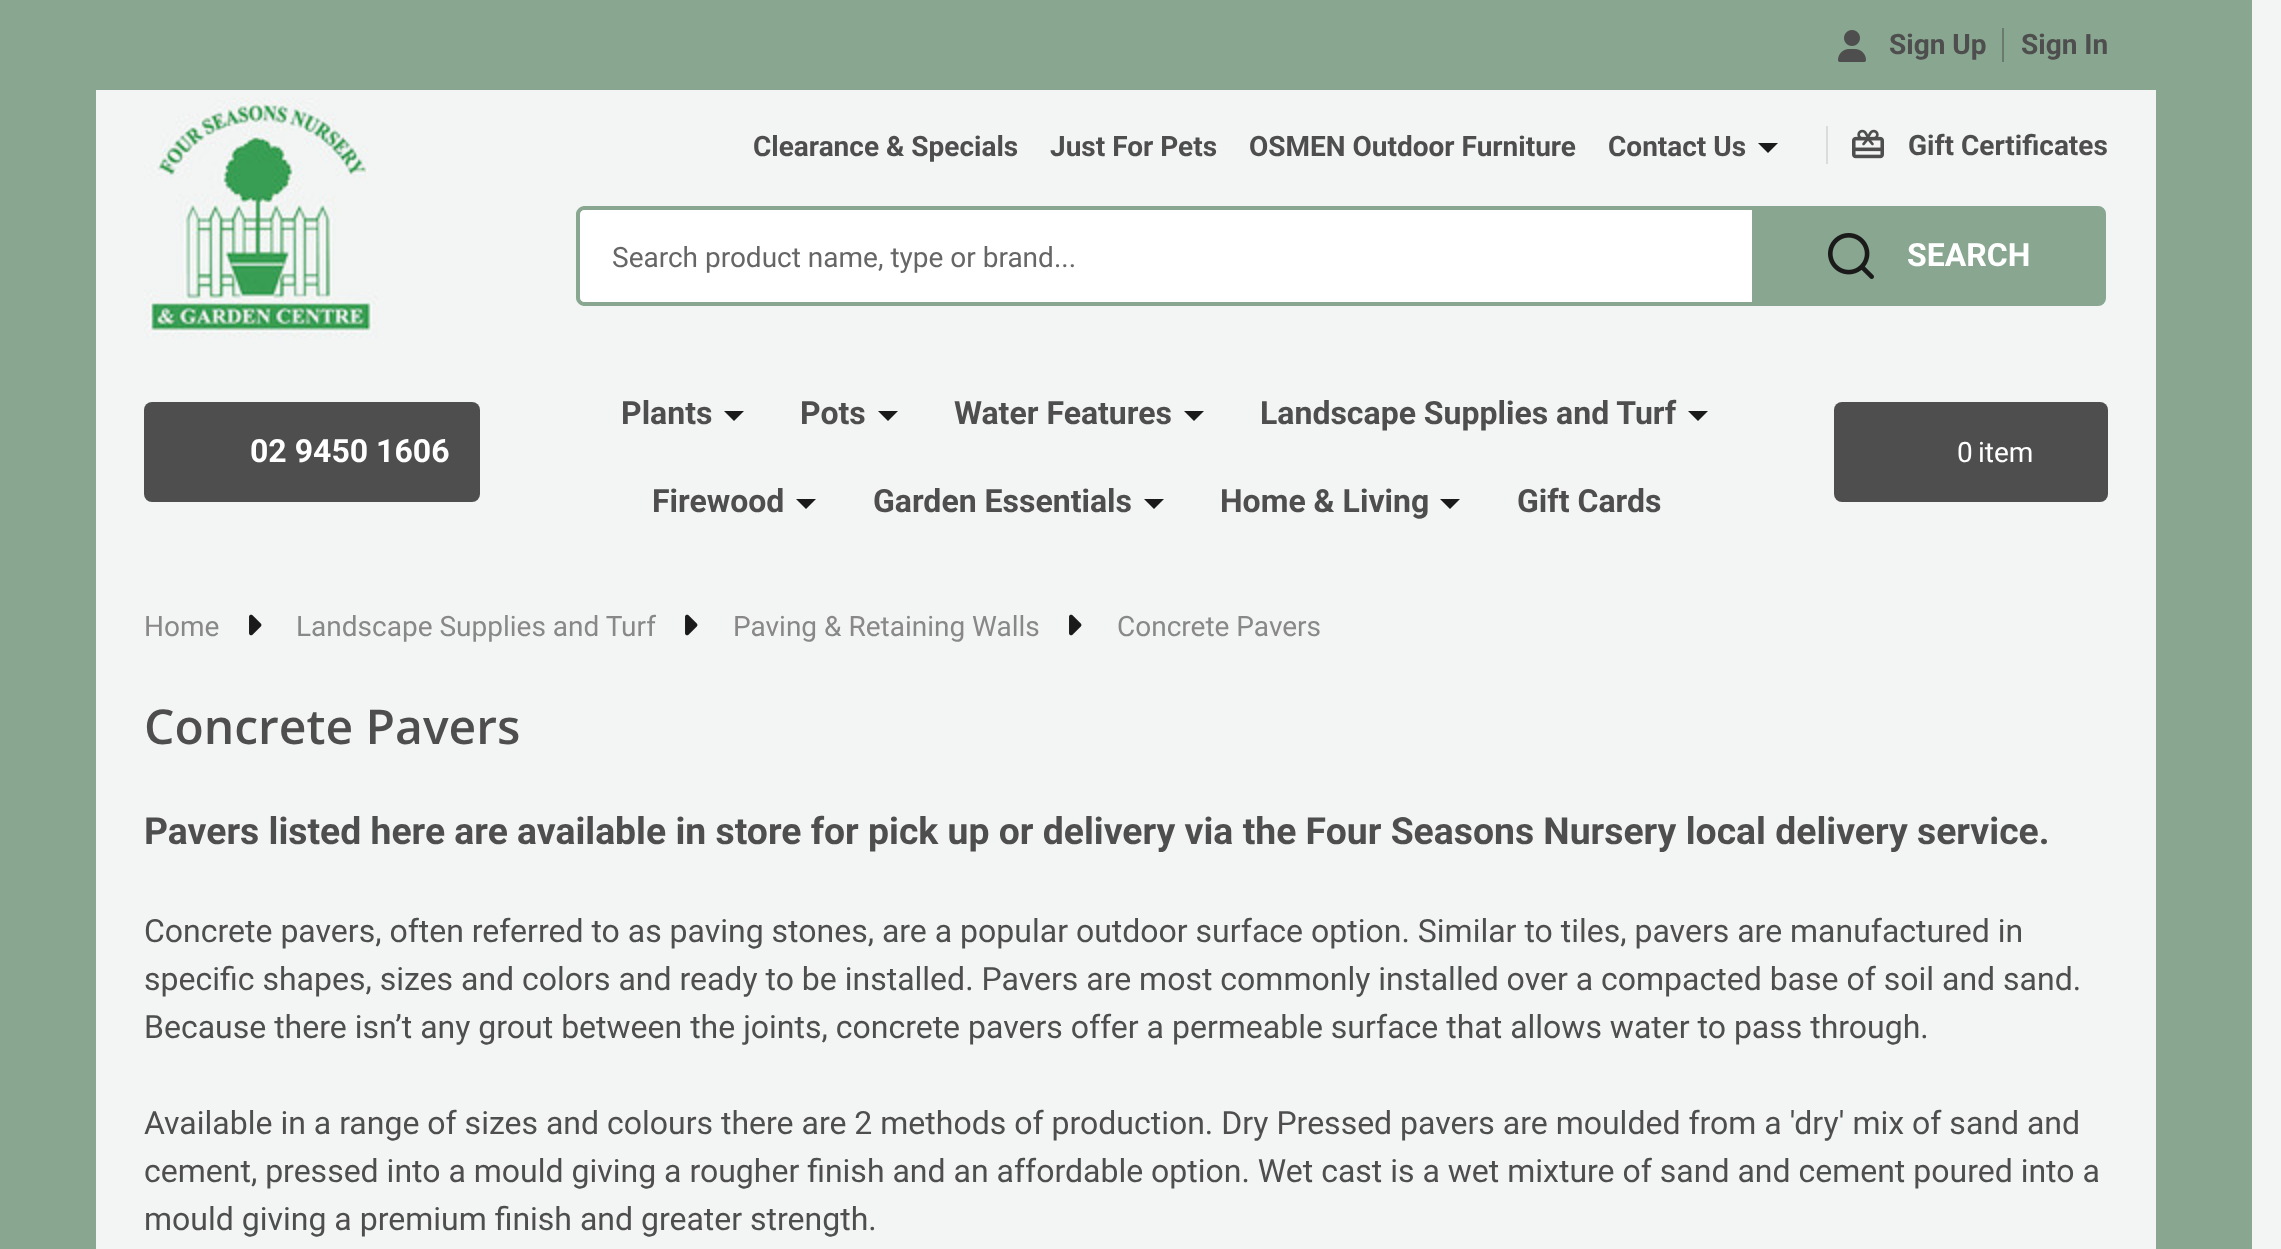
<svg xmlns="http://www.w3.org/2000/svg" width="2281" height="1249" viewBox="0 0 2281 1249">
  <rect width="100%" height="100%" fill="rgb(243,245,244)"/>
  <rect x="2156" y="0" width="96" height="1249" fill="rgb(136,166,144)"/>
  <rect x="0" y="0" width="96" height="1249" fill="rgb(136,166,144)"/>
  <rect x="96" y="0" width="2060" height="90" fill="rgb(136,166,144)"/>
  <image x="1838" y="30" width="28" height="32" href="pic1.png"/>
  <text x="1889" y="54" font-family="Roboto" font-size="28" font-weight="bold" fill="rgb(78,78,78)">Sign Up</text>
  <rect x="2002" y="28" width="2" height="34" fill="rgb(107,122,111)"/>
  <text x="2021" y="54" font-family="Roboto" font-size="28" font-weight="bold" fill="rgb(78,78,78)">Sign In</text>
  <image x="144" y="98" width="234" height="240" href="pic2.png"/>
  <g font-family="Roboto" font-size="28" font-weight="bold" fill="rgb(78,78,78)">
    <text x="753" y="156">Clearance &amp; Specials</text>
    <text x="1050" y="156">Just For Pets</text>
    <text x="1249" y="156">OSMEN Outdoor Furniture</text>
    <text x="1608" y="156">Contact Us</text>
  </g>
  <path d="M1758 143L1768 153L1778 143Z" fill="rgb(26,26,26)"/>
  <rect x="1826" y="126" width="2" height="38" fill="rgb(218,220,219)"/>
  <image x="1852" y="129" width="32" height="30" href="pic3.png"/>
  <text x="1908" y="155" font-family="Roboto" font-size="28" font-weight="bold" fill="rgb(78,78,78)">Gift Certificates</text>
  <path d="M584 206H1752V306H584C579.5 306 576 302.5 576 298V214C576 209.5 579.5 206 584 206Z" fill="rgb(255,255,255)"/>
  <path d="M584 206H1752V306H584C580 306 576 302 576 298V214C576 210 580 206 584 206ZM584 210H1752V302H584C582 302 580 300 580 298V214C580 212 582 210 584 210Z" fill="rgb(136,166,144)" fill-rule="evenodd"/>
  <text x="612" y="267" font-family="Roboto" font-size="28" fill="rgb(102,102,102)">Search product name, type or brand...</text>
  <path d="M1754 208H2098C2101.5 208 2104 210.5 2104 214V298C2104 301.5 2101.5 304 2098 304H1754Z" fill="rgb(136,166,144)" stroke="rgb(136,166,144)" stroke-width="4"/>
  <image x="1828" y="233" width="46" height="46" href="pic4.png"/>
  <text x="1907" y="266" font-family="Roboto" font-size="32" font-weight="bold" fill="rgb(255,255,255)">SEARCH</text>
  <rect x="144" y="402" width="336" height="100" rx="8" fill="rgb(78,78,78)"/>
  <text x="250" y="462" font-family="Roboto" font-size="32" font-weight="bold" fill="rgb(255,255,255)">02 9450 1606</text>
  <text x="621" y="424" font-family="Roboto" font-size="32" font-weight="bold" fill="rgb(78,78,78)">Plants</text>
  <path d="M724 411L734 421L744 411Z" fill="rgb(26,26,26)"/>
  <text x="800" y="424" font-family="Roboto" font-size="32" font-weight="bold" fill="rgb(78,78,78)">Pots</text>
  <path d="M878 411L888 421L898 411Z" fill="rgb(26,26,26)"/>
  <text x="954" y="424" font-family="Roboto" font-size="32" font-weight="bold" fill="rgb(78,78,78)">Water Features</text>
  <path d="M1184 411L1194 421L1204 411Z" fill="rgb(26,26,26)"/>
  <text x="1260" y="424" font-family="Roboto" font-size="32" font-weight="bold" fill="rgb(78,78,78)">Landscape Supplies and Turf</text>
  <path d="M1688 411L1698 421L1708 411Z" fill="rgb(26,26,26)"/>
  <text x="652" y="512" font-family="Roboto" font-size="32" font-weight="bold" fill="rgb(78,78,78)">Firewood</text>
  <path d="M796 499L806 509L816 499Z" fill="rgb(26,26,26)"/>
  <text x="873" y="512" font-family="Roboto" font-size="32" font-weight="bold" fill="rgb(78,78,78)">Garden Essentials</text>
  <path d="M1144 499L1154 509L1164 499Z" fill="rgb(26,26,26)"/>
  <text x="1220" y="512" font-family="Roboto" font-size="32" font-weight="bold" fill="rgb(78,78,78)">Home &amp; Living</text>
  <path d="M1440 499L1450 509L1460 499Z" fill="rgb(26,26,26)"/>
  <text x="1517" y="512" font-family="Roboto" font-size="32" font-weight="bold" fill="rgb(78,78,78)">Gift Cards</text>
  <rect x="1834" y="402" width="274" height="100" rx="8" fill="rgb(78,78,78)"/>
  <text x="1957" y="462" font-family="Roboto" font-size="28" letter-spacing="-1" fill="rgb(255,255,255)">0</text>
  <text x="1978" y="462" font-family="Roboto" font-size="28" fill="rgb(255,255,255)">item</text>
  <text x="144" y="636" font-family="Roboto" font-size="28" fill="rgb(136,136,136)">Home</text>
  <image x="249" y="614" width="13" height="22" href="pic5.png"/>
  <text x="296" y="636" font-family="Roboto" font-size="28" fill="rgb(136,136,136)">Landscape Supplies and Turf</text>
  <image x="685" y="614" width="13" height="22" href="pic5.png"/>
  <text x="733" y="636" font-family="Roboto" font-size="28" fill="rgb(136,136,136)">Paving &amp; Retaining Walls</text>
  <image x="1069" y="614" width="13" height="22" href="pic5.png"/>
  <text x="1117" y="636" font-family="Roboto" font-size="28" fill="rgb(136,136,136)">Concrete Pavers</text>
  <text x="144" y="744" font-family="Open Sans" font-size="48" font-weight="600" fill="rgb(78,78,78)">Concrete Pavers</text>
  <text x="144" y="844" font-family="Roboto" font-size="37.33" font-weight="bold" fill="rgb(78,78,78)">Pavers listed here are available in store for pick up or delivery via the Four Seasons Nursery local delivery service.</text>
  <g font-family="Roboto" font-size="32" fill="rgb(78,78,78)">
    <text>
      <tspan x="144" y="942">Concrete pavers, often referred to as paving stones, are a popular outdoor surface option. Similar to tiles, pavers are manufactured in</tspan>
      <tspan x="144" y="990">specific shapes, sizes and colors and ready to be installed. Pavers are most commonly installed over a compacted base of soil and sand.</tspan>
      <tspan x="144" y="1038">Because there isn’t any grout between the joints, concrete pavers offer a permeable surface that allows water to pass through.</tspan>
    </text>
    <text>
      <tspan x="144" y="1134">Available in a range of sizes and colours there are 2 methods of production. Dry Pressed pavers are moulded from a 'dry' mix of sand and</tspan>
      <tspan x="144" y="1182">cement, pressed into a mould giving a rougher finish and an affordable option. Wet cast is a wet mixture of sand and cement poured into a</tspan>
      <tspan x="144" y="1230">mould giving a premium finish and greater strength.</tspan>
    </text>
  </g>
</svg>
